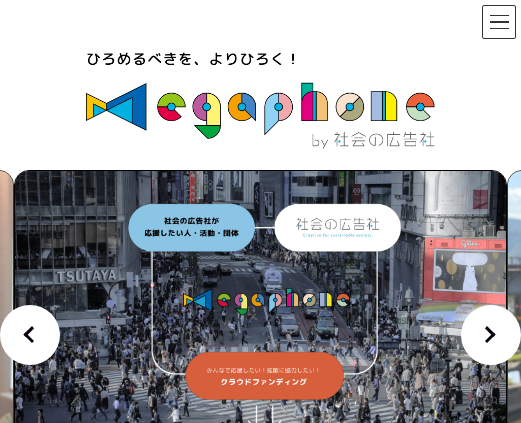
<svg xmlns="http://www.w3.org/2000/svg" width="521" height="423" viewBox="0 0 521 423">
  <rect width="100%" height="100%" fill="rgb(255,255,255)"/>
  <rect x="490" y="15" width="19" height="1" fill="rgb(51,51,51)"/>
  <rect x="490" y="21" width="19" height="2" fill="rgb(51,51,51)"/>
  <rect x="490" y="28" width="19" height="1" fill="rgb(51,51,51)"/>
  <rect x="482.5" y="5.5" width="33" height="33" rx="1.5" fill="none" stroke="rgb(51,51,51)"/>
  <image x="86" y="52" width="349" height="97" href="pic1.png"/>
  <rect x="-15.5" y="170.5" width="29" height="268" rx="14.5" fill="none" stroke="rgb(51,51,51)"/>
  <image x="0" y="171" width="13" height="252" href="pic2.png"/>
  <rect x="14.5" y="170.5" width="492" height="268" rx="14.5" fill="none" stroke="rgb(0,0,0)"/>
  <image x="15" y="171" width="491" height="252" href="pic3.png"/>
  <rect x="507.5" y="170.5" width="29" height="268" rx="14.5" fill="none" stroke="rgb(51,51,51)"/>
  <image x="508" y="171" width="13" height="252" href="pic4.png"/>
  <circle cx="30" cy="335" r="30" fill="rgb(255,255,255)"/>
  <path d="M25.5 332.5L34 341L32 343L23.5 334.5Z" fill="rgb(9,0,13)"/>
  <path d="M32 326L34 328.5L25.5 337L23.5 334.5Z" fill="rgb(9,0,13)"/>
  <circle cx="491" cy="335" r="30" fill="rgb(255,255,255)"/>
  <path d="M487 326L495.5 334.5L493.5 337L485 328.5Z" fill="rgb(9,0,13)"/>
  <path d="M493.5 332.5L495.5 334.5L487 343L485 341Z" fill="rgb(9,0,13)"/>
  <text x="471" y="387" font-family="'Rounded Mplus 1c'" font-size="14" fill="rgb(95,93,95)">PAGE</text>
  <text x="471" y="407" font-family="'Rounded Mplus 1c'" font-size="14" fill="rgb(65,64,69)">TOP</text>
</svg>
